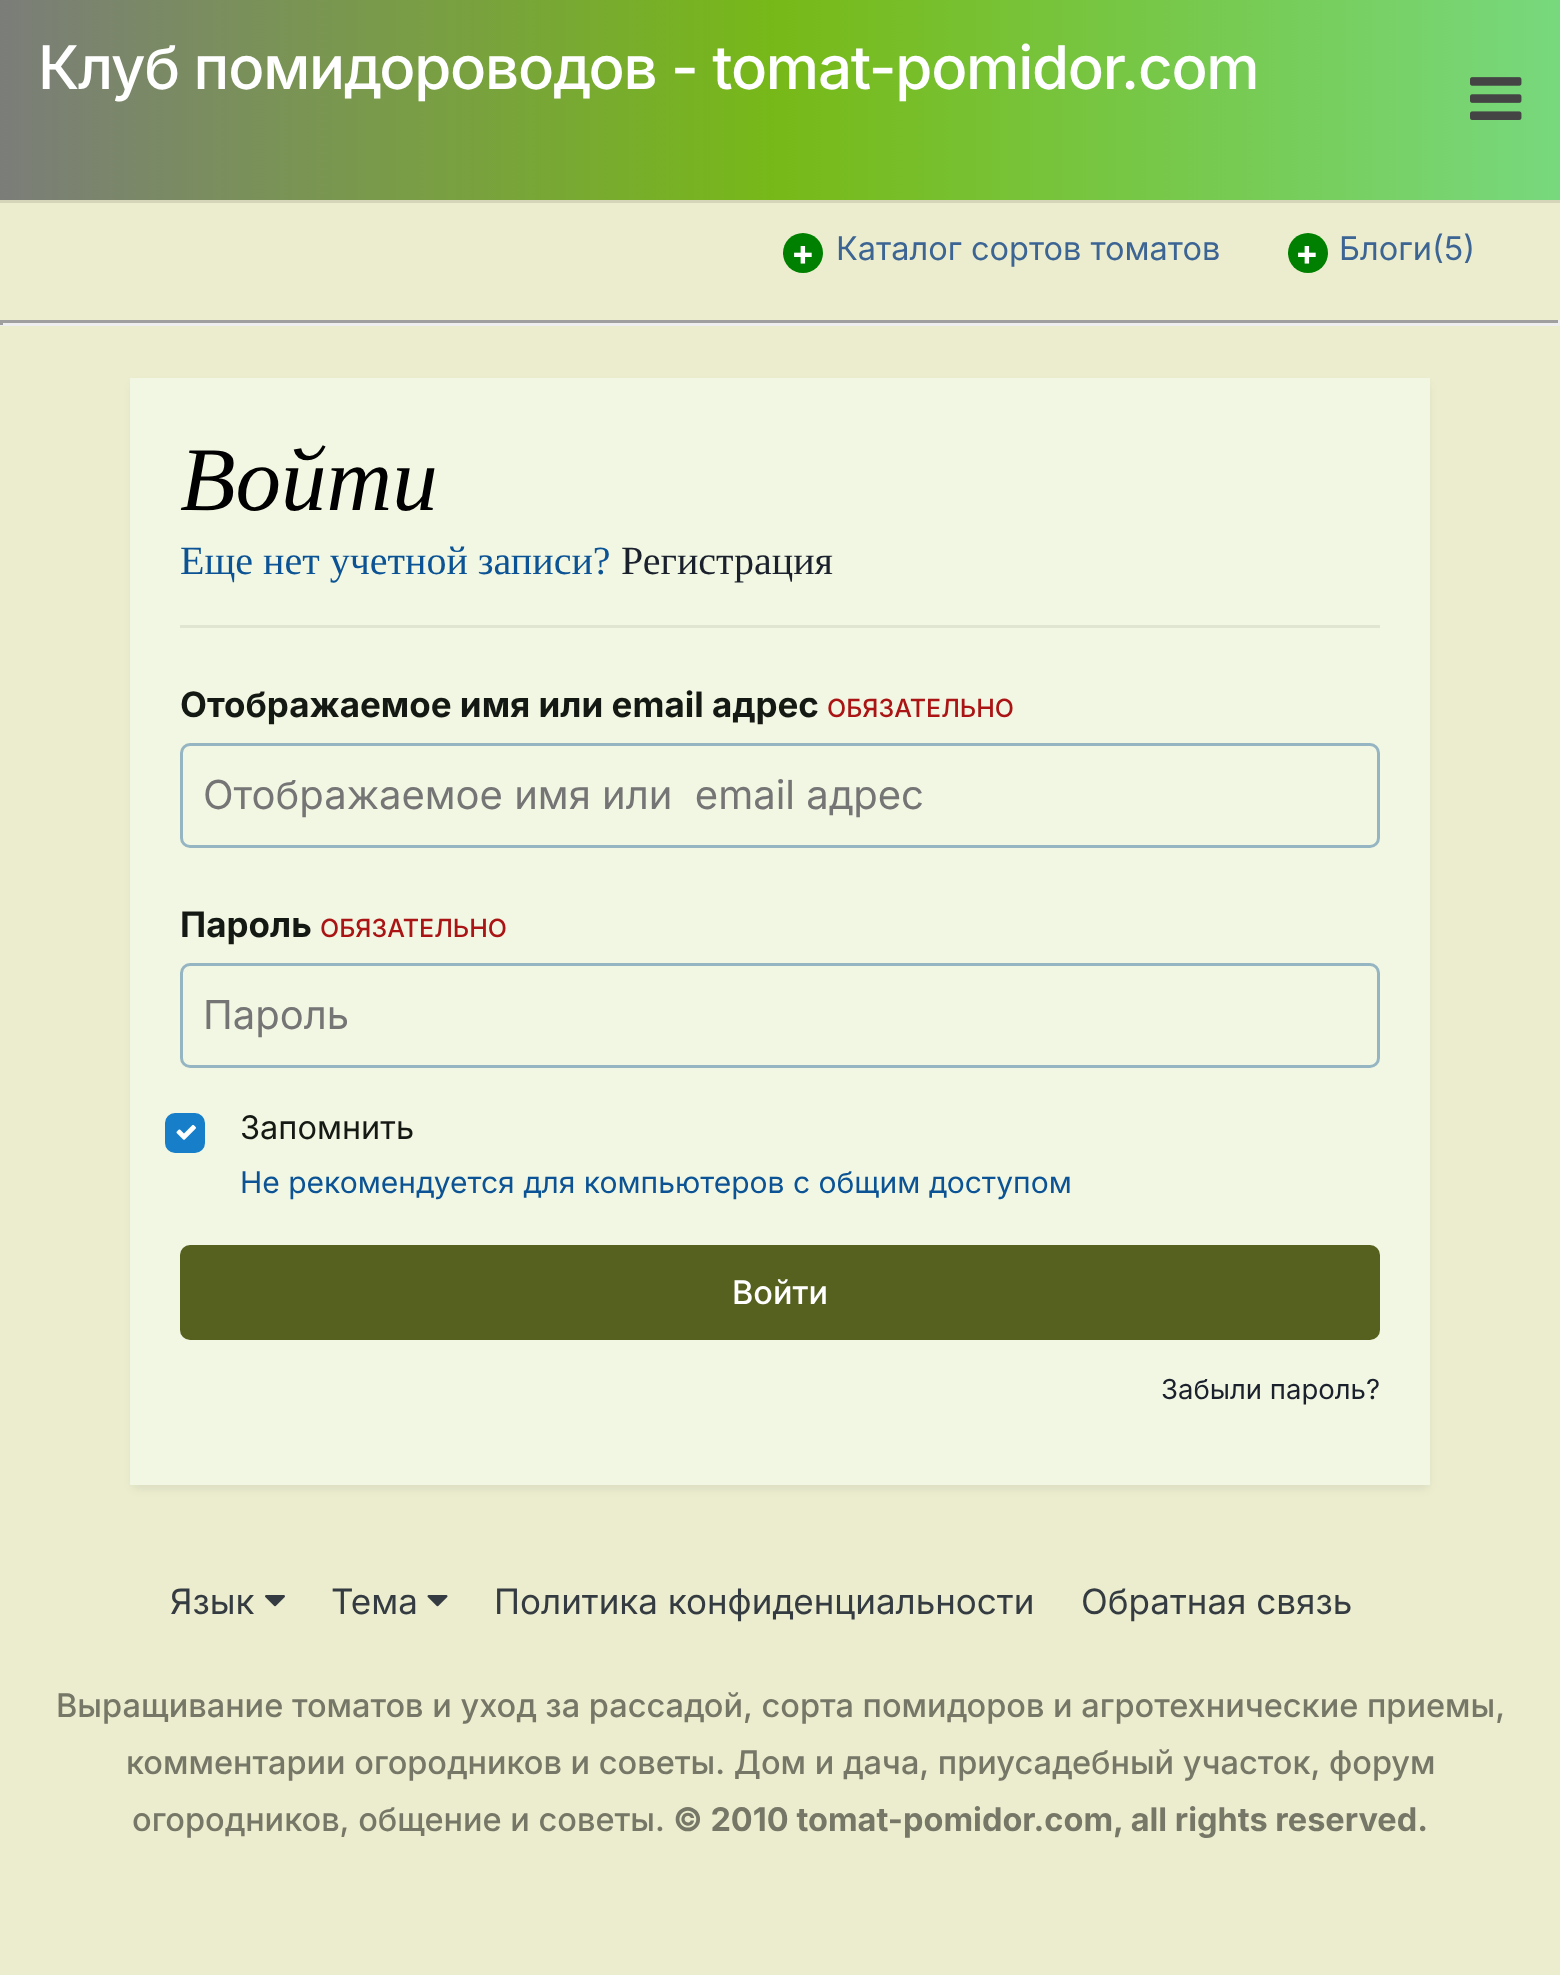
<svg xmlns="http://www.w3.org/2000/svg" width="1560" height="1975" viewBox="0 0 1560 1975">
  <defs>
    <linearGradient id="g1" gradientUnits="userSpaceOnUse" x1="0" y1="100" x2="1560" y2="100"><stop offset="0" stop-color="rgb(123,125,121)"/><stop offset="0.5" stop-color="rgb(119,185,24)"/><stop offset="1" stop-color="rgb(119,216,125)"/></linearGradient>
  </defs>
  <rect width="100%" height="100%" fill="rgb(236,237,206)"/>
  <rect x="0" y="200" width="1560" height="3" fill="rgb(212,213,185)"/>
  <rect x="0" y="0" width="1560" height="200" fill="url(#g1)"/>
  <text x="38" y="89" font-family="Inter" font-size="60" font-weight="500" letter-spacing="-1.25" fill="rgb(255,255,255)">Клуб помидороводов - tomat-pomidor.com</text>
  <image x="1470" y="77" width="52" height="43" href="pic1.png"/>
  <circle cx="803" cy="253" r="20" fill="rgb(0,128,0)"/>
  <text x="791" y="265" font-family="Inter" font-size="35" font-weight="bold" fill="rgb(255,255,255)">+</text>
  <text x="836" y="260" font-family="Inter" font-size="32.5" fill="rgb(61,101,148)">Каталог сортов томатов</text>
  <circle cx="1308" cy="253" r="20" fill="rgb(0,128,0)"/>
  <text x="1295" y="265" font-family="Inter" font-size="35" font-weight="bold" fill="rgb(255,255,255)">+</text>
  <text x="1339" y="260" font-family="Inter" font-size="32.5" fill="rgb(61,101,148)">Блоги(5)</text>
  <rect x="0" y="320" width="1560" height="3" fill="rgb(159,159,159)"/>
  <rect x="1558" y="320" width="2" height="5" fill="rgb(238,238,238)"/>
  <rect x="0" y="323" width="1560" height="3" fill="rgb(238,238,238)"/>
  <rect x="0" y="320" width="3" height="5" fill="rgb(159,159,159)"/>
  <rect x="133" y="385" width="1295" height="1103" fill="rgba(45,55,72,0.1)" filter="blur(5px)"/>
  <rect x="130" y="378" width="1300" height="1107" fill="rgb(242,247,227)"/>
  <text x="180" y="510" font-family="Liberation Serif" font-size="91" font-style="italic" fill="rgb(0,0,0)">Войти</text>
  <text x="180" y="574" font-family="Liberation Serif" font-size="40" fill="rgb(11,83,148)">Еще нет учетной записи?</text>
  <text x="621" y="574" font-family="Liberation Serif" font-size="40" fill="rgb(26,32,44)">Регистрация</text>
  <rect x="180" y="625" width="1200" height="3" fill="rgb(224,229,210)"/>
  <text x="180" y="717" font-family="Inter" font-size="35" font-weight="bold" fill="rgb(21,25,20)">Отображаемое имя или email адрес</text>
  <text x="827" y="717" font-family="Inter" font-size="25" font-weight="500" fill="rgb(170,20,20)">ОБЯЗАТЕЛЬНО</text>
  <rect x="181.5" y="744.5" width="1197" height="102" rx="8.5" fill="none" stroke="rgb(150,181,195)" stroke-width="3"/>
  <text x="203" y="809" font-family="Inter" font-size="40" fill="rgb(117,117,117)" xml:space="preserve">Отображаемое имя или  email адрес</text>
  <text x="180" y="937" font-family="Inter" font-size="35" font-weight="bold" fill="rgb(21,25,20)">Пароль</text>
  <text x="320" y="937" font-family="Inter" font-size="25" font-weight="500" fill="rgb(170,20,20)">ОБЯЗАТЕЛЬНО</text>
  <rect x="181.5" y="964.5" width="1197" height="102" rx="8.5" fill="none" stroke="rgb(150,181,195)" stroke-width="3"/>
  <text x="203" y="1029" font-family="Inter" font-size="40" fill="rgb(117,117,117)">Пароль</text>
  <rect x="166.5" y="1114.5" width="37" height="37" rx="8.5" fill="rgb(23,126,201)" stroke="rgb(23,126,201)" stroke-width="3"/>
  <image x="176" y="1124" width="20" height="16" href="pic2.png"/>
  <text x="240" y="1139" font-family="Inter" font-size="32.5" fill="rgb(21,25,20)">Запомнить</text>
  <text x="240" y="1193" font-family="Inter" font-size="30" fill="rgb(11,83,148)">Не рекомендуется для компьютеров с общим доступом</text>
  <rect x="180" y="1245" width="1200" height="95" rx="10" fill="rgb(86,97,31)"/>
  <text x="732" y="1304" font-family="Inter" font-size="32.5" font-weight="500" fill="rgb(255,255,255)">Войти</text>
  <text x="1161" y="1399" font-family="Inter" font-size="27.5" fill="rgb(26,32,44)">Забыли пароль?</text>
  <text x="170" y="1614" font-family="Inter" font-size="35" fill="rgb(53,60,65)">Язык</text>
  <image x="265" y="1595" width="20" height="12" href="pic3.png"/>
  <text x="331" y="1614" font-family="Inter" font-size="35" fill="rgb(53,60,65)">Тема</text>
  <image x="427" y="1595" width="21" height="12" href="pic4.png"/>
  <g font-family="Inter" font-size="35" fill="rgb(53,60,65)">
    <text x="494" y="1614">Политика конфиденциальности</text>
    <text x="1081" y="1614">Обратная связь</text>
  </g>
  <g font-family="Inter" font-size="32.5" font-weight="500" fill="rgb(118,119,103)">
    <text x="56" y="1717">Выращивание томатов и уход за рассадой, сорта помидоров и агротехнические приемы,</text>
    <text x="126" y="1774">комментарии огородников и советы. Дом и дача, приусадебный участок, форум</text>
    <text x="132" y="1831">огородников, общение и советы.</text>
  </g>
  <text x="673" y="1831" font-family="Inter" font-size="32.5" font-weight="bold" fill="rgb(118,119,103)">© 2010 tomat-pomidor.com, all rights reserved.</text>
</svg>
